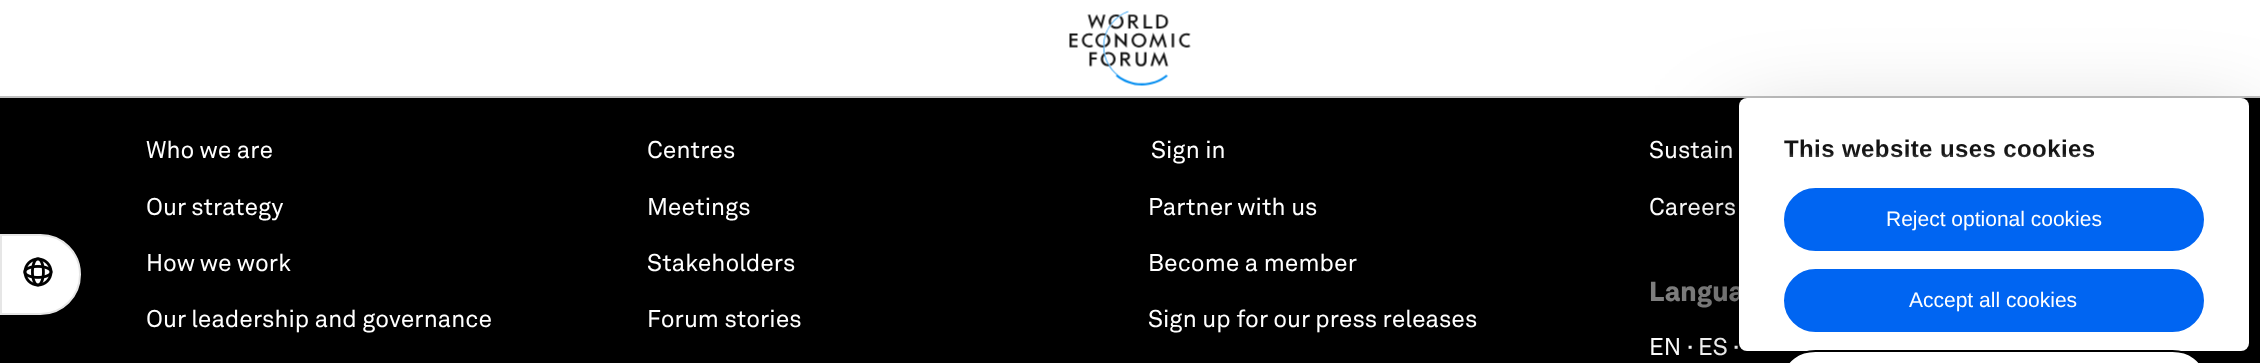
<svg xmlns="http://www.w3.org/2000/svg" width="2260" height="363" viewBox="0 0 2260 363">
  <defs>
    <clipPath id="clip1"><rect x="1784" y="138" width="420" height="50"/></clipPath>
    <linearGradient id="g1" gradientUnits="userSpaceOnUse" x1="1979" y1="188" x2="1979" y2="153"><stop offset="0" stop-color="rgb(255,255,255)"/><stop offset="0.5" stop-color="rgb(255,255,255)" stop-opacity="0.8"/><stop offset="1" stop-color="rgb(255,255,255)" stop-opacity="0"/></linearGradient>
  </defs>
  <rect width="100%" height="100%" fill="rgb(0,0,0)"/>
  <rect x="0" y="0" width="2260" height="96" fill="rgb(255,255,255)"/>
  <rect x="0" y="96" width="2260" height="2" fill="rgb(191,191,191)"/>
  <image x="1069" y="10" width="122" height="76" href="pic1.png"/>
  <path d="M1 235H40.5C62.5 235 80 252.5 80 274.5C80 296.5 62.5 314 40.5 314H1Z" fill="rgb(255,255,255)" stroke="rgb(230,230,230)" stroke-width="2"/>
  <image x="23" y="257" width="30" height="30" href="pic2.png"/>
  <g font-family="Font" font-size="24" fill="rgb(255,255,255)">
    <text x="146" y="158">Who we are</text>
    <text x="146" y="215">Our strategy</text>
    <text x="146" y="271">How we work</text>
    <text x="146" y="327">Our leadership and governance</text>
    <text x="647" y="158">Centres</text>
    <text x="647" y="215">Meetings</text>
    <text x="647" y="271">Stakeholders</text>
    <text x="647" y="327">Forum stories</text>
    <text x="1151" y="158">Sign in</text>
    <text x="1148" y="215">Partner with us</text>
    <text x="1148" y="271">Become a member</text>
    <text x="1148" y="327">Sign up for our press releases</text>
    <text x="1649" y="158">Sustain</text>
    <text x="1649" y="215">Careers</text>
  </g>
  <text x="1649" y="301" font-family="Font" font-size="27" font-weight="900" fill="rgb(128,128,128)">Langua</text>
  <text x="1649" y="355" font-family="Font" font-size="24" fill="rgb(255,255,255)">EN</text>
  <text x="1688" y="351" font-family="Liberation Sans" font-size="12" fill="rgb(255,255,255)">▪</text>
  <text x="1698" y="355" font-family="Font" font-size="24" fill="rgb(255,255,255)">ES</text>
  <text x="1734" y="351" font-family="Liberation Sans" font-size="12" fill="rgb(255,255,255)">▪</text>
  <rect x="1739" y="143" width="510" height="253" rx="8" fill="rgba(0,0,0,0.3)" filter="blur(52.5px)"/>
  <rect x="1739" y="98" width="510" height="253" rx="8" fill="rgb(255,255,255)"/>
  <g clip-path="url(#clip1)">
    <text x="1784" y="157" font-family="Liberation Sans" font-size="24" font-weight="bold" letter-spacing="0.4" fill="rgb(20,20,20)">This website uses cookies</text>
  </g>
  <rect x="1789" y="153" width="304" height="5" fill="url(#g1)"/>
  <rect x="1785" y="189" width="418" height="61" rx="30.5" fill="rgb(0,101,242)" stroke="rgb(0,101,242)" stroke-width="2"/>
  <text x="1886" y="226" font-family="Liberation Sans" font-size="21" fill="rgb(255,255,255)">Reject optional cookies</text>
  <rect x="1785" y="270" width="418" height="61" rx="30.5" fill="rgb(0,101,242)" stroke="rgb(0,101,242)" stroke-width="2"/>
  <text x="1909" y="307" font-family="Liberation Sans" font-size="21" fill="rgb(255,255,255)">Accept all cookies</text>
  <rect x="1785" y="351" width="418" height="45" rx="30.5" fill="rgb(255,255,255)" stroke="rgb(0,0,0)" stroke-width="2"/>
</svg>
